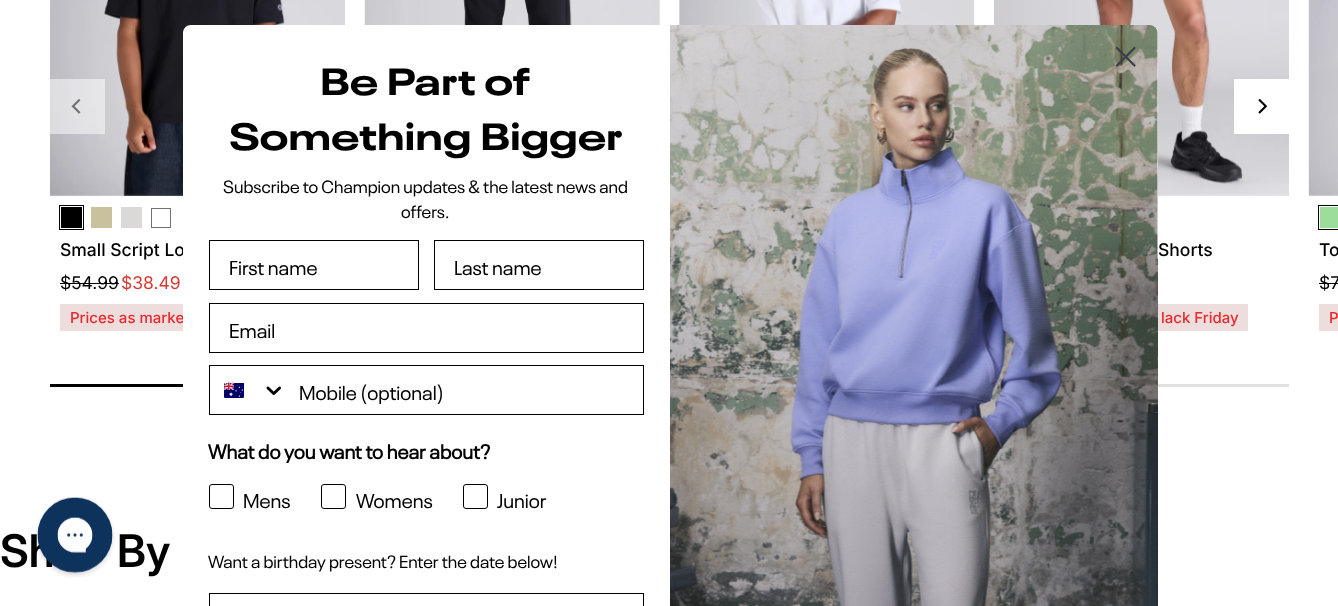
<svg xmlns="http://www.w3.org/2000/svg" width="1338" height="606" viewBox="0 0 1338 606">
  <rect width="100%" height="100%" fill="rgb(255,255,255)"/>
  <image x="50" y="194" width="133" height="2" href="pic11.png"/>
  <image x="50" y="0" width="295" height="196" href="pic10.png"/>
  <text x="60" y="256" font-family="Inter" font-size="17.5" font-weight="500" fill="rgb(0,0,0)">Small Script Lo</text>
  <rect x="60" y="304" width="123" height="27" fill="rgb(238,221,221)"/>
  <text x="70" y="323" font-family="Inter" font-size="15" font-weight="500" fill="rgb(232,42,46)">Prices as marke</text>
  <image x="1158" y="194" width="131" height="2" href="pic13.png"/>
  <image x="994" y="0" width="295" height="196" href="pic12.png"/>
  <path d="M191 25H1150C1154.5 25 1158 28.5 1158 33V606H183V33C183 28.5 186.5 25 191 25Z" fill="rgb(255,255,255)"/>
  <path d="M670 25H1150C1154.5 25 1158 28.5 1158 33V606H670Z" fill="rgb(255,255,255)"/>
  <image x="670" y="25" width="488" height="581" href="pic3.png"/>
  <path d="M1117 48L1134.5 65.5M1117 65.5L1134.5 48Z" fill="none" stroke="rgb(55,63,71)" stroke-width="2.2" stroke-linecap="round" stroke-linejoin="round"/>
  <g font-family="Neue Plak" font-size="37.5" font-weight="bold" fill="rgb(0,0,0)">
    <text x="320" y="95">Be Part of</text>
    <text x="229" y="150">Something Bigger</text>
  </g>
  <g font-family="Neue Plak" font-size="17.5" fill="rgb(0,0,0)">
    <text x="223" y="193">Subscribe to Champion updates &amp; the latest news and</text>
    <text x="401" y="218">offers.</text>
  </g>
  <rect x="209.5" y="240.5" width="209" height="49" fill="none" stroke="rgb(0,0,0)"/>
  <text x="229" y="275" font-family="Neue Plak" font-size="20" fill="rgb(0,0,0)">First name</text>
  <rect x="434.5" y="240.5" width="209" height="49" fill="none" stroke="rgb(0,0,0)"/>
  <text x="454" y="275" font-family="Neue Plak" font-size="20" fill="rgb(0,0,0)">Last name</text>
  <rect x="209.5" y="303.5" width="434" height="49" fill="none" stroke="rgb(0,0,0)"/>
  <text x="229" y="338" font-family="Neue Plak" font-size="20" fill="rgb(0,0,0)">Email</text>
  <rect x="209.5" y="365.5" width="434" height="49" fill="none" stroke="rgb(0,0,0)"/>
  <image x="224" y="382" width="20" height="16" href="pic1.png"/>
  <image x="266" y="386" width="15" height="9" href="pic2.png"/>
  <text x="299" y="400" font-family="Neue Plak" font-size="20" fill="rgb(0,0,0)">Mobile (optional)</text>
  <text x="208" y="459" font-family="'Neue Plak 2'" font-size="20" font-weight="bold" fill="rgb(0,0,0)">What do you want to hear about?</text>
  <rect x="209.5" y="484.5" width="24" height="24" rx="2.5" fill="none" stroke="rgb(0,0,0)"/>
  <text x="243" y="508" font-family="Neue Plak" font-size="20" fill="rgb(0,0,0)">Mens</text>
  <rect x="321.5" y="484.5" width="24" height="24" rx="2.5" fill="none" stroke="rgb(0,0,0)"/>
  <text x="356" y="508" font-family="Neue Plak" font-size="20" fill="rgb(0,0,0)">Womens</text>
  <rect x="463.5" y="484.5" width="24" height="24" rx="2.5" fill="none" stroke="rgb(0,0,0)"/>
  <text x="497" y="508" font-family="Neue Plak" font-size="20" fill="rgb(0,0,0)">Junior</text>
  <text x="208" y="568" font-family="Neue Plak" font-size="17.5" fill="rgb(0,0,0)">Want a birthday present? Enter the date below!</text>
  <rect x="209.5" y="593.5" width="434" height="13" fill="none" stroke="rgb(0,0,0)"/>
  <rect x="50" y="79" width="55" height="55" fill="rgba(255,255,255,0.5)"/>
  <image x="71" y="99" width="10" height="15" href="pic4.png"/>
  <rect x="1234" y="79" width="55" height="55" fill="rgb(255,255,255)"/>
  <image x="1258" y="99" width="10" height="15" href="pic5.png"/>
  <image x="364" y="0" width="296" height="25" href="pic6.png"/>
  <image x="364" y="0" width="296" height="25" href="pic7.png"/>
  <image x="679" y="0" width="296" height="25" href="pic8.png"/>
  <image x="679" y="0" width="296" height="25" href="pic9.png"/>
  <rect x="61" y="207" width="21" height="21" fill="rgb(0,0,0)"/>
  <rect x="59.5" y="205.5" width="24" height="24" fill="none" stroke="rgb(0,0,0)"/>
  <rect x="91" y="207" width="21" height="21" fill="rgb(201,192,157)"/>
  <rect x="121" y="207" width="21" height="21" fill="rgb(219,217,216)"/>
  <rect x="151.5" y="208.5" width="19" height="19" fill="none" stroke="rgb(115,115,115)"/>
  <text x="60" y="289" font-family="Inter" font-size="17.5" fill="rgb(0,0,0)">$54.99</text>
  <rect x="60" y="283" width="59" height="1" fill="rgb(0,0,0)"/>
  <text x="121" y="289" font-family="Inter" font-size="17.5" fill="rgb(217,56,49)">$38.49</text>
  <text x="1158" y="256" font-family="Inter" font-size="17.5" font-weight="500" fill="rgb(0,0,0)">Shorts</text>
  <rect x="1158" y="304" width="90" height="27" fill="rgb(238,221,221)"/>
  <text x="1161" y="323" font-family="Inter" font-size="15" font-weight="500" fill="rgb(232,42,46)">lack Friday</text>
  <image x="1308" y="0" width="30" height="196" href="pic14.png"/>
  <image x="1308" y="0" width="30" height="196" href="pic15.png"/>
  <rect x="1320" y="207" width="18" height="21" fill="rgb(157,221,155)"/>
  <rect x="1318.5" y="205.5" width="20" height="24" fill="none" stroke="rgb(0,0,0)"/>
  <text x="1319" y="256" font-family="Inter" font-size="17.5" font-weight="500" fill="rgb(0,0,0)">To</text>
  <text x="1319" y="289" font-family="Inter" font-size="17.5" fill="rgb(0,0,0)">$7</text>
  <rect x="1319" y="283" width="19" height="1" fill="rgb(0,0,0)"/>
  <rect x="1319" y="304" width="19" height="27" fill="rgb(238,221,221)"/>
  <text x="1329" y="323" font-family="Inter" font-size="15" font-weight="500" fill="rgb(232,42,46)">P</text>
  <rect x="50" y="384" width="133" height="3" fill="rgb(0,0,0)"/>
  <rect x="1158" y="384" width="131" height="3" fill="rgb(224,224,224)"/>
  <g font-family="Inter" font-size="45" font-weight="600" fill="rgb(0,0,0)">
    <text x="0" y="567">Sh</text>
    <text x="117" y="567">By</text>
  </g>
  <image x="35" y="497" width="80" height="81" href="pic16.png"/>
</svg>
